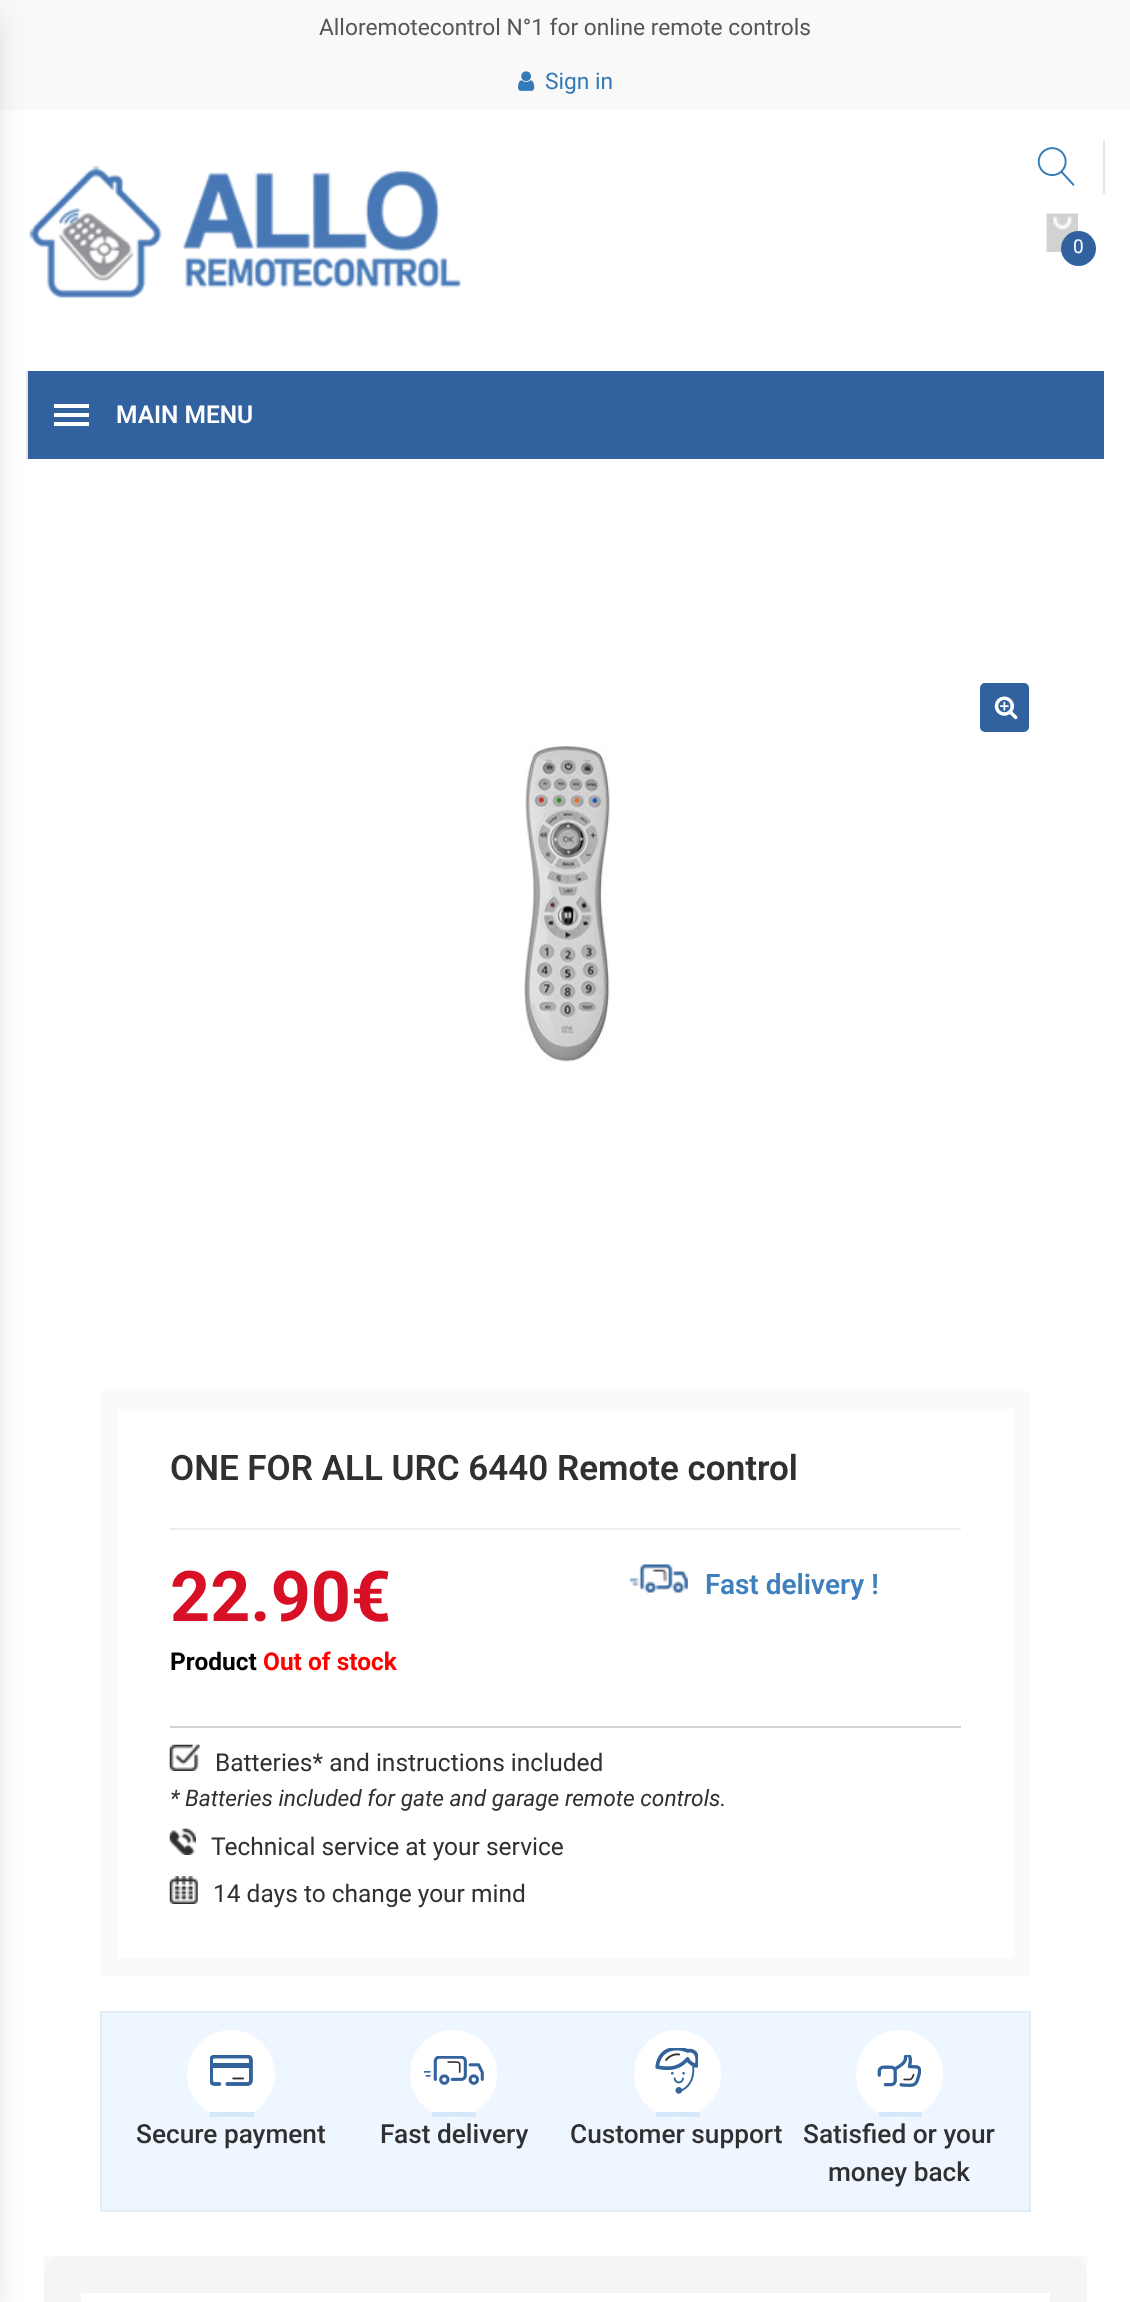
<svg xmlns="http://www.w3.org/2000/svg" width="1130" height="2302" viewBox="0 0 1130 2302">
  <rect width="100%" height="100%" fill="rgb(255,255,255)"/>
  <rect x="0" y="0" width="1130" height="110" fill="rgb(249,249,249)"/>
  <image x="29" y="166" width="432" height="132" href="pic2.png"/>
  <rect x="28" y="371" width="1076" height="88" fill="rgb(49,98,159)"/>
  <rect x="26" y="371" width="2" height="88" fill="rgb(230,230,230)"/>
  <rect x="-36" y="14" width="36" height="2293" fill="rgba(0,0,0,0.11)" filter="blur(12px)"/>
  <text x="319" y="35" font-family="Roboto" font-size="22.75" fill="rgb(85,85,85)">Alloremotecontrol N°1 for online remote controls</text>
  <image x="518" y="71" width="17" height="20" href="pic1.png"/>
  <text x="545" y="89" font-family="Roboto" font-size="22.75" fill="rgb(51,122,183)">Sign in</text>
  <rect x="1103" y="140" width="2" height="54" fill="rgb(230,230,230)"/>
  <image x="1037" y="147" width="38" height="39" href="pic3.png"/>
  <image x="1046" y="213" width="32" height="39" href="pic4.png"/>
  <circle cx="1078.5" cy="248.5" r="17.5" fill="rgb(49,98,159)"/>
  <text x="1073" y="253" font-family="Roboto" font-size="19" fill="rgb(255,255,255)">0</text>
  <rect x="54" y="404" width="35" height="4" fill="rgb(255,255,255)"/>
  <rect x="54" y="413" width="35" height="4" fill="rgb(255,255,255)"/>
  <rect x="54" y="422" width="35" height="4" fill="rgb(255,255,255)"/>
  <text x="116" y="423" font-family="Roboto" font-size="24.5" font-weight="600" fill="rgb(255,255,255)">MAIN MENU</text>
  <rect x="980" y="683" width="49" height="49" rx="5" fill="rgb(49,98,159)"/>
  <image x="994" y="696" width="24" height="24" href="pic5.png"/>
  <image x="524" y="746" width="86" height="316" href="pic6.png"/>
  <rect x="109" y="1400" width="913" height="567" fill="none" stroke="rgb(250,250,250)" stroke-width="18"/>
  <text x="170" y="1480" font-family="Roboto" font-size="35" font-weight="600" fill="rgb(49,48,48)">ONE FOR ALL URC 6440 Remote control</text>
  <rect x="170" y="1528" width="791" height="2" fill="rgb(238,238,238)"/>
  <text x="170" y="1621" font-family="Roboto" font-size="70" font-weight="bold" fill="rgb(216,16,38)">22.90€</text>
  <image x="630" y="1564" width="58" height="29" href="pic7.png"/>
  <text x="705" y="1594" font-family="Roboto" font-size="28" font-weight="600" fill="rgb(62,127,189)">Fast delivery !</text>
  <text x="170" y="1670" font-family="Roboto" font-size="24.5" font-weight="bold" fill="rgb(0,0,0)">Product</text>
  <text x="263" y="1670" font-family="Roboto" font-size="24.5" font-weight="bold" fill="rgb(255,0,0)">Out of stock</text>
  <rect x="170" y="1726" width="791" height="2" fill="rgb(211,211,211)"/>
  <image x="169" y="1744" width="31" height="27" href="pic8.png"/>
  <text x="215" y="1771" font-family="Roboto" font-size="24.5" fill="rgb(49,48,48)">Batteries* and instructions included</text>
  <text x="170" y="1806" font-family="Roboto" font-size="22.75" font-style="italic" fill="rgb(49,48,48)">* Batteries included for gate and garage remote controls.</text>
  <image x="169" y="1828" width="27" height="27" href="pic9.png"/>
  <text x="211" y="1855" font-family="Roboto" font-size="24.5" fill="rgb(49,48,48)">Technical service at your service</text>
  <image x="169" y="1876" width="29" height="28" href="pic10.png"/>
  <text x="213" y="1902" font-family="Roboto" font-size="24.5" fill="rgb(49,48,48)">14 days to change your mind</text>
  <rect x="101" y="2012" width="929" height="199" fill="rgb(238,246,255)" stroke="rgb(227,237,246)" stroke-width="2"/>
  <circle cx="231" cy="2074" r="44" fill="rgb(255,255,255)"/>
  <rect x="210" y="2112" width="44" height="5" fill="rgb(213,232,251)"/>
  <image x="210" y="2055" width="43" height="31" href="pic11.png"/>
  <text x="136" y="2143" font-family="Roboto" font-size="26.25" font-weight="500" fill="rgb(49,48,48)">Secure payment</text>
  <rect x="410" y="2030" width="87" height="88" rx="43.5" fill="rgb(255,255,255)"/>
  <rect x="432" y="2112" width="44" height="5" fill="rgb(213,232,251)"/>
  <image x="424" y="2056" width="60" height="29" href="pic12.png"/>
  <text x="380" y="2143" font-family="Roboto" font-size="26.25" font-weight="500" fill="rgb(49,48,48)">Fast delivery</text>
  <rect x="634" y="2030" width="87" height="88" rx="43.5" fill="rgb(255,255,255)"/>
  <rect x="656" y="2112" width="44" height="5" fill="rgb(213,232,251)"/>
  <image x="655" y="2048" width="43" height="46" href="pic13.png"/>
  <text x="570" y="2143" font-family="Roboto" font-size="26.25" font-weight="500" fill="rgb(49,48,48)">Customer support</text>
  <rect x="856" y="2030" width="87" height="88" rx="43.5" fill="rgb(255,255,255)"/>
  <rect x="879" y="2112" width="43" height="5" fill="rgb(213,232,251)"/>
  <image x="877" y="2055" width="44" height="32" href="pic14.png"/>
  <g font-family="Roboto" font-size="26.25" font-weight="500" fill="rgb(49,48,48)">
    <text x="803" y="2143">Satisfied or your</text>
    <text x="828" y="2181">money back</text>
  </g>
  <rect x="44" y="2256" width="1043" height="18" fill="rgb(249,249,249)"/>
  <rect x="44" y="2256" width="1043" height="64" rx="18" fill="rgb(245,245,245)"/>
  <rect x="81" y="2293" width="969" height="9" fill="rgb(255,255,255)"/>
</svg>
